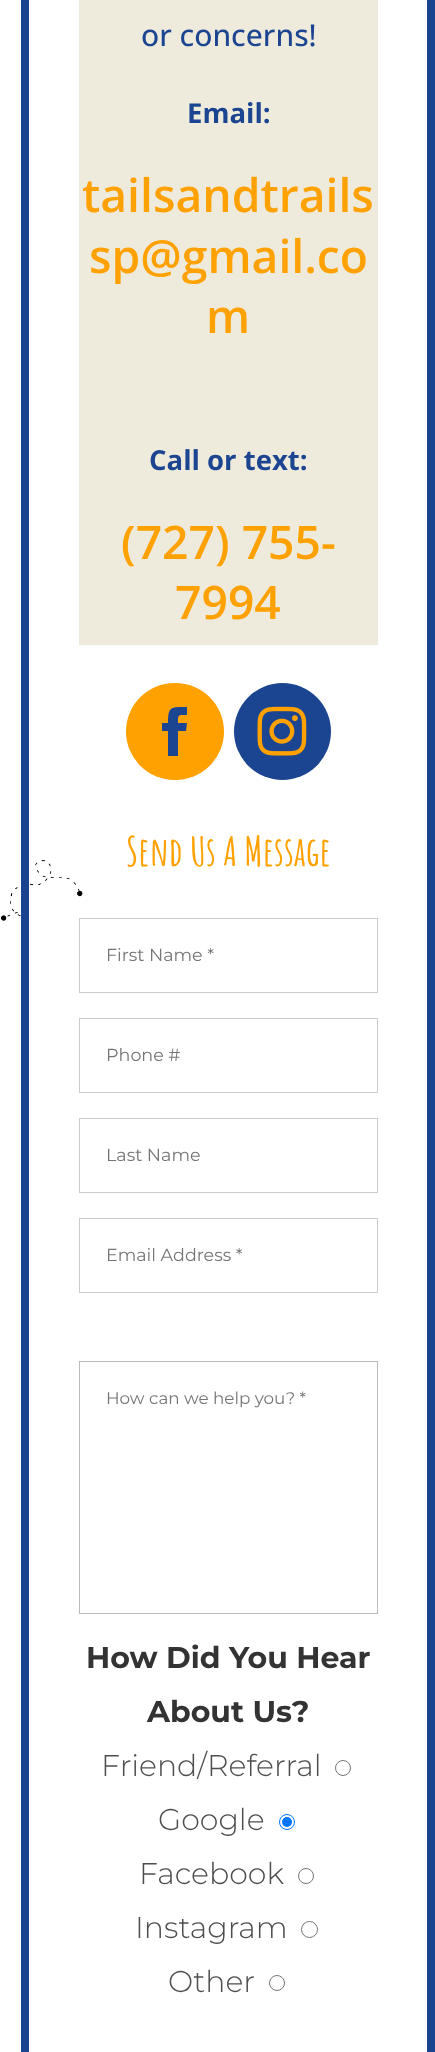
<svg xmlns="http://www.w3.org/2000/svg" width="435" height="2052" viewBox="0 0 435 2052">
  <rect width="100%" height="100%" fill="rgb(255,255,255)"/>
  <image x="0" y="860" width="83" height="61" href="pic1.png"/>
  <rect x="25" y="-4" width="406" height="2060" fill="none" stroke="rgb(27,68,144)" stroke-width="8"/>
  <rect x="79" y="0" width="299" height="645" fill="rgb(239,235,220)"/>
  <text x="141" y="46" font-family="Open Sans" font-size="30" font-weight="500" fill="rgb(27,69,145)">or concerns!</text>
  <text x="187" y="123" font-family="Open Sans" font-size="27.5" font-weight="bold" fill="rgb(27,69,145)">Email:</text>
  <g font-family="Open Sans" font-size="46.25" font-weight="600" fill="rgb(255,161,0)">
    <text x="82" y="212">tailsandtrails</text>
    <text x="89" y="273">sp@gmail.co</text>
    <text x="206" y="333">m</text>
  </g>
  <text x="149" y="470" font-family="Open Sans" font-size="27.5" font-weight="bold" fill="rgb(27,69,145)">Call or text:</text>
  <g font-family="Open Sans" font-size="46.25" font-weight="600" fill="rgb(255,161,0)">
    <text x="121" y="559">(727) 755-</text>
    <text x="175" y="619">7994</text>
  </g>
  <rect x="126" y="683" width="98" height="97" rx="48.5" fill="rgb(255,161,0)"/>
  <path d="M168 756H178V731H186L187 723H178C178 714 178 715 187 715V707C171 707 168 706 168 723H162V731H168Z" fill="rgb(27,69,145)"/>
  <circle cx="282.5" cy="731.5" r="48.5" fill="rgb(27,69,145)"/>
  <image x="257" y="706" width="50" height="50" href="pic2.png"/>
  <text x="126" y="866" font-family="Amatic SC" font-size="40" font-weight="bold" fill="rgb(255,161,0)">Send Us A Message</text>
  <rect x="79.5" y="918.5" width="298" height="74" fill="none" stroke="rgb(204,204,204)"/>
  <text x="106" y="961" font-family="'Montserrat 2'" font-size="17.5" font-weight="100" fill="rgb(117,117,117)">First Name *</text>
  <rect x="79.5" y="1018.5" width="298" height="74" fill="none" stroke="rgb(204,204,204)"/>
  <text x="106" y="1061" font-family="'Montserrat 2'" font-size="17.5" font-weight="100" fill="rgb(117,117,117)">Phone #</text>
  <rect x="79.5" y="1118.5" width="298" height="74" fill="none" stroke="rgb(204,204,204)"/>
  <text x="106" y="1161" font-family="'Montserrat 2'" font-size="17.5" font-weight="100" fill="rgb(117,117,117)">Last Name</text>
  <rect x="79.5" y="1218.5" width="298" height="74" fill="none" stroke="rgb(204,204,204)"/>
  <text x="106" y="1261" font-family="'Montserrat 2'" font-size="17.5" font-weight="100" fill="rgb(117,117,117)">Email Address *</text>
  <rect x="79.5" y="1361.5" width="298" height="252" fill="none" stroke="rgb(187,187,187)"/>
  <text x="106" y="1404" font-family="'Montserrat 2'" font-size="16.75" font-weight="100" fill="rgb(117,117,117)">How can we help you? *</text>
  <g font-family="Montserrat" font-size="30" font-weight="100" fill="rgb(51,51,51)">
    <text x="86" y="1668">How Did You Hear</text>
    <text x="147" y="1722">About Us?</text>
  </g>
  <text x="101" y="1776" font-family="'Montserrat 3'" font-size="30" font-weight="100" fill="rgb(78,78,78)">Friend/Referral</text>
  <circle cx="343" cy="1768" r="7.5" fill="none" stroke="rgb(118,118,118)"/>
  <text x="158" y="1830" font-family="'Montserrat 3'" font-size="30" font-weight="100" fill="rgb(78,78,78)">Google</text>
  <circle cx="287" cy="1822" r="7.5" fill="none" stroke="rgb(0,117,255)"/>
  <circle cx="287" cy="1822" r="5" fill="rgb(0,117,255)"/>
  <text x="139" y="1884" font-family="'Montserrat 3'" font-size="30" font-weight="100" fill="rgb(78,78,78)">Facebook</text>
  <circle cx="306" cy="1876" r="7.5" fill="none" stroke="rgb(118,118,118)"/>
  <text x="135" y="1938" font-family="'Montserrat 3'" font-size="30" font-weight="100" fill="rgb(78,78,78)">Instagram</text>
  <circle cx="309.5" cy="1929.5" r="8" fill="none" stroke="rgb(118,118,118)"/>
  <text x="168" y="1992" font-family="'Montserrat 3'" font-size="30" font-weight="100" fill="rgb(78,78,78)">Other</text>
  <circle cx="277" cy="1983" r="7.5" fill="none" stroke="rgb(118,118,118)"/>
</svg>
